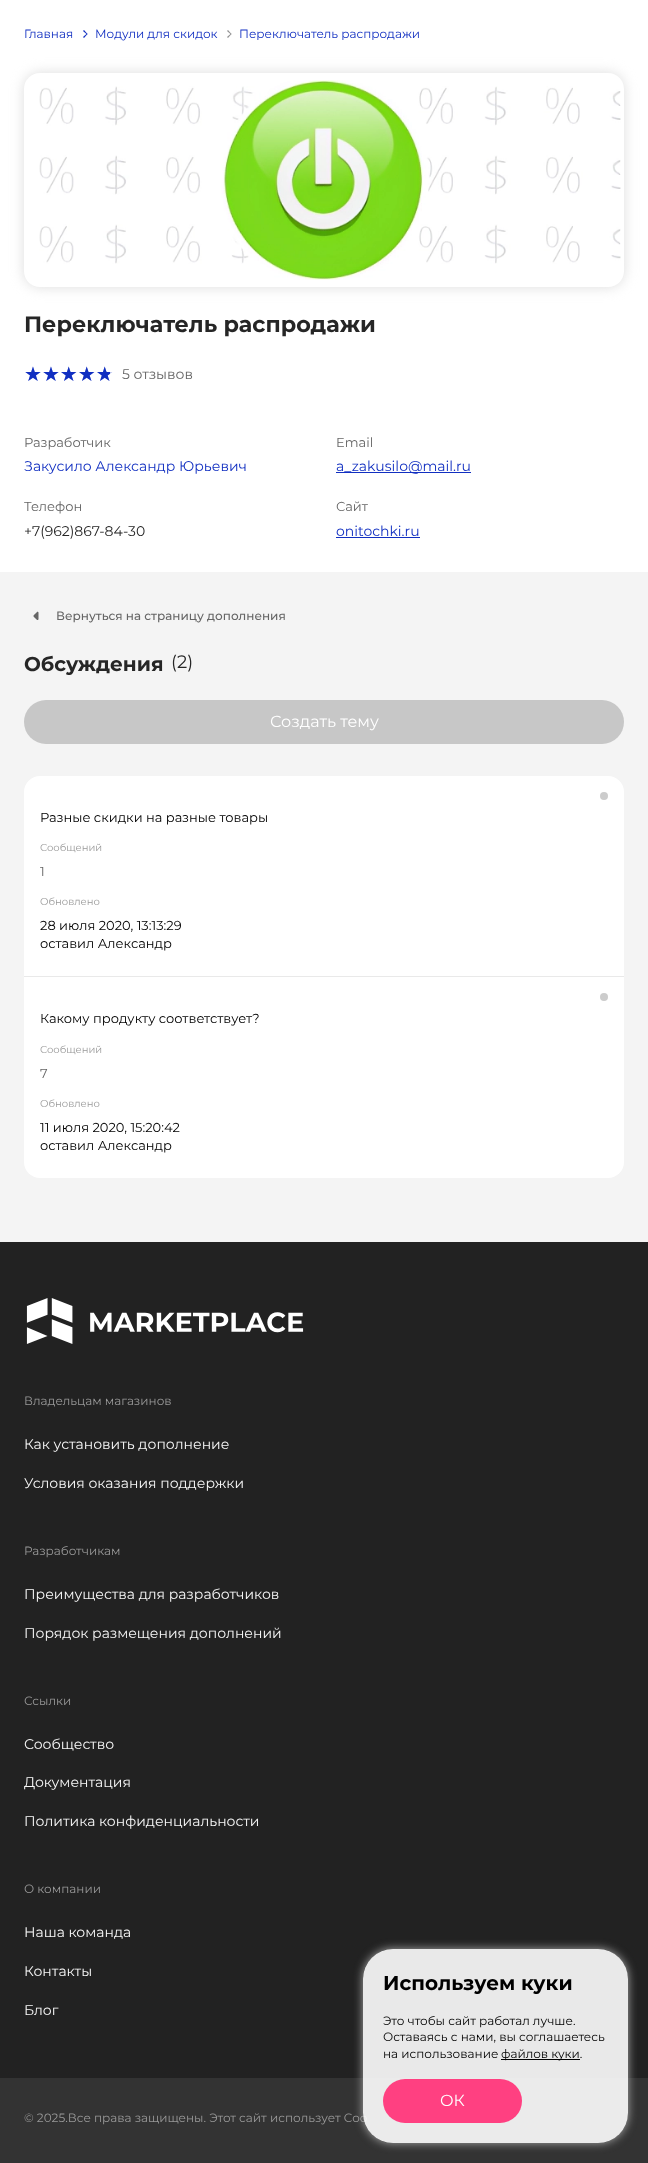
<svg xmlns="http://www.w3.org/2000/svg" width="648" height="2163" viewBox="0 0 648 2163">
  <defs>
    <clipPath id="clip1"><rect x="0" y="28" width="648" height="12"/></clipPath>
    <clipPath id="clip2"><path d="M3 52H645V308H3ZM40 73H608C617 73 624 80 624 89V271C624 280 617 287 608 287H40C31 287 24 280 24 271V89C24 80 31 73 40 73Z" clip-rule="evenodd"/></clipPath>
    <clipPath id="clip3"><rect x="24" y="362" width="86" height="25"/></clipPath>
    <clipPath id="clip4"><path d="M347 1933H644V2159H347ZM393 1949H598C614.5 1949 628 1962.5 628 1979V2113C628 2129.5 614.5 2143 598 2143H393C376.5 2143 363 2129.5 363 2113V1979C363 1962.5 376.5 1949 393 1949Z" clip-rule="evenodd"/></clipPath>
  </defs>
  <rect width="100%" height="100%" fill="rgb(255,255,255)"/>
  <text x="24" y="38" font-family="Montserrat" font-size="12" fill="rgb(17,47,193)">Главная</text>
  <path d="M83 31L84 30L87.5 34L87 34.5Z" fill="rgb(17,47,193)"/>
  <path d="M83 37L87 33.5L87.5 34L84 38Z" fill="rgb(17,47,193)"/>
  <text x="95" y="38" font-family="Montserrat" font-size="12" fill="rgb(17,47,193)">Модули для скидок</text>
  <path d="M227 31L228 30L231.5 34L231 34.5Z" fill="rgb(144,144,145)"/>
  <path d="M227 37L231 33.5L231.5 34L228 38Z" fill="rgb(144,144,145)"/>
  <g clip-path="url(#clip1)">
    <text x="239" y="38" font-family="Montserrat" font-size="12" fill="rgb(17,47,193)">Переключатель распродажи</text>
  </g>
  <g clip-path="url(#clip2)">
    <rect x="24" y="73" width="600" height="214" rx="16" fill="rgb(221,221,221)" filter="blur(6.5px)"/>
  </g>
  <image x="39" y="80" width="582" height="200" href="pic1.png"/>
  <text x="24" y="332" font-family="Montserrat" font-size="22.3" font-weight="bold" fill="rgb(38,38,38)">Переключатель распродажи</text>
  <text x="24" y="381" font-family="DejaVu Sans" font-size="20" fill="rgb(184,193,237)">★★★★★</text>
  <g clip-path="url(#clip3)">
    <text x="24" y="381" font-family="DejaVu Sans" font-size="20" fill="rgb(17,47,193)">★★★★★</text>
  </g>
  <text x="122" y="379" font-family="Montserrat" font-size="14" fill="rgb(102,102,102)">5 отзывов</text>
  <text x="24" y="447" font-family="Montserrat" font-size="13" fill="rgb(102,102,102)">Разработчик</text>
  <text x="24" y="471" font-family="Montserrat" font-size="14" fill="rgb(17,47,193)">Закусило Александр Юрьевич</text>
  <text x="336" y="447" font-family="Montserrat" font-size="13" fill="rgb(102,102,102)">Email</text>
  <rect x="336" y="472" width="135" height="1" fill="rgb(17,47,193)"/>
  <text x="336" y="471" font-family="Montserrat" font-size="14" fill="rgb(17,47,193)">a_zakusilo@mail.ru</text>
  <text x="24" y="511" font-family="Montserrat" font-size="13" fill="rgb(102,102,102)">Телефон</text>
  <text x="24" y="536" font-family="Montserrat" font-size="14" fill="rgb(38,38,38)">+7(962)867-84-30</text>
  <text x="336" y="511" font-family="Montserrat" font-size="13" fill="rgb(102,102,102)">Сайт</text>
  <text x="336" y="536" font-family="Montserrat" font-size="14" fill="rgb(17,47,193)">onitochki.ru</text>
  <rect x="336" y="537" width="84" height="1" fill="rgb(17,47,193)"/>
  <rect x="0" y="572" width="648" height="670" fill="rgb(244,244,244)"/>
  <image x="33" y="611" width="6" height="9" href="pic2.png"/>
  <text x="56" y="620" font-family="Montserrat" font-size="12" font-weight="500" fill="rgb(102,102,102)">Вернуться на страницу дополнения</text>
  <text x="24" y="671" font-family="Montserrat" font-size="20" font-weight="bold" fill="rgb(38,38,38)">Обсуждения</text>
  <text x="171" y="668" font-family="Montserrat" font-size="18" fill="rgb(38,38,38)">(2)</text>
  <rect x="24" y="700" width="600" height="44" rx="22" fill="rgb(199,199,199)"/>
  <text x="270" y="727" font-family="Montserrat" font-size="16" fill="rgb(255,255,255)">Создать тему</text>
  <rect x="24" y="776" width="600" height="402" rx="16" fill="rgb(255,255,255)"/>
  <rect x="24" y="976" width="600" height="1" fill="rgb(233,233,233)"/>
  <circle cx="604" cy="796" r="4" fill="rgb(204,204,204)"/>
  <text x="40" y="822" font-family="Montserrat" font-size="13" fill="rgb(0,0,0)">Разные скидки на разные товары</text>
  <text x="40" y="851" font-family="Montserrat" font-size="10" fill="rgb(153,153,153)">Сообщений</text>
  <text x="40" y="876" font-family="Montserrat" font-size="13" fill="rgb(102,102,102)">1</text>
  <text x="40" y="905" font-family="Montserrat" font-size="10" fill="rgb(153,153,153)">Обновлено</text>
  <g font-family="Montserrat" font-size="13" fill="rgb(0,0,0)">
    <text>
      <tspan x="40" y="930">28 июля 2020, 13:13:29</tspan>
      <tspan x="40" y="948">оставил Александр</tspan>
    </text>
  </g>
  <circle cx="604" cy="997" r="4" fill="rgb(204,204,204)"/>
  <text x="40" y="1023" font-family="Montserrat" font-size="13" fill="rgb(0,0,0)">Какому продукту соответствует?</text>
  <text x="40" y="1053" font-family="Montserrat" font-size="10" fill="rgb(153,153,153)">Сообщений</text>
  <text x="40" y="1078" font-family="Montserrat" font-size="13" fill="rgb(102,102,102)">7</text>
  <text x="40" y="1107" font-family="Montserrat" font-size="10" fill="rgb(153,153,153)">Обновлено</text>
  <g font-family="Montserrat" font-size="13" fill="rgb(0,0,0)">
    <text>
      <tspan x="40" y="1132">11 июля 2020, 15:20:42</tspan>
      <tspan x="40" y="1150">оставил Александр</tspan>
    </text>
  </g>
  <rect x="0" y="1242" width="648" height="836" fill="rgb(34,34,34)"/>
  <image x="26" y="1298" width="278" height="46" href="pic3.png"/>
  <text x="24" y="1405" font-family="Montserrat" font-size="12" fill="rgb(153,153,153)">Владельцам магазинов</text>
  <g font-family="Montserrat" font-size="14" fill="rgb(248,248,248)">
    <text x="24" y="1449">Как установить дополнение</text>
    <text x="24" y="1488">Условия оказания поддержки</text>
  </g>
  <text x="24" y="1555" font-family="Montserrat" font-size="12" fill="rgb(153,153,153)">Разработчикам</text>
  <g font-family="Montserrat" font-size="14" fill="rgb(248,248,248)">
    <text x="24" y="1599">Преимущества для разработчиков</text>
    <text x="24" y="1638">Порядок размещения дополнений</text>
  </g>
  <text x="24" y="1705" font-family="Montserrat" font-size="12" fill="rgb(153,153,153)">Ссылки</text>
  <g font-family="Montserrat" font-size="14" fill="rgb(248,248,248)">
    <text x="24" y="1749">Сообщество</text>
    <text x="24" y="1787">Документация</text>
    <text x="24" y="1826">Политика конфиденциальности</text>
  </g>
  <text x="24" y="1893" font-family="Montserrat" font-size="12" fill="rgb(153,153,153)">О компании</text>
  <g font-family="Montserrat" font-size="14" fill="rgb(248,248,248)">
    <text x="24" y="1937">Наша команда</text>
    <text x="24" y="1976">Контакты</text>
    <text x="24" y="2015">Блог</text>
  </g>
  <rect x="0" y="2078" width="648" height="85" fill="rgb(51,51,51)"/>
  <text x="24" y="2122" font-family="Montserrat" font-size="12" fill="rgb(153,153,153)">© 2025.Все права защищены. Этот сайт использует Coo</text>
  <g clip-path="url(#clip4)">
    <rect x="363" y="1949" width="265" height="194" rx="30" fill="rgb(170,170,170)" filter="blur(5px)"/>
  </g>
  <rect x="363" y="1949" width="265" height="194" rx="30" fill="rgba(255,255,255,0.9)"/>
  <text x="383" y="1990" font-family="Montserrat" font-size="20" font-weight="bold" fill="rgb(0,0,0)">Используем куки</text>
  <g font-family="Montserrat" font-size="12" fill="rgb(0,0,0)">
    <text>
      <tspan x="383" y="2025">Это чтобы сайт работал лучше.</tspan>
      <tspan x="383" y="2041">Оставаясь с нами, вы соглашаетесь</tspan>
      <tspan x="383" y="2058">на использование</tspan>
    </text>
  </g>
  <rect x="501" y="2059" width="79" height="1" fill="rgb(0,0,0)"/>
  <text x="501" y="2058" font-family="Montserrat" font-size="12" fill="rgb(0,0,0)">файлов куки.</text>
  <rect x="383" y="2079" width="139" height="44" rx="22" fill="rgb(255,64,129)"/>
  <text x="440" y="2106" font-family="Montserrat" font-size="16" fill="rgb(255,255,255)">ОК</text>
</svg>
